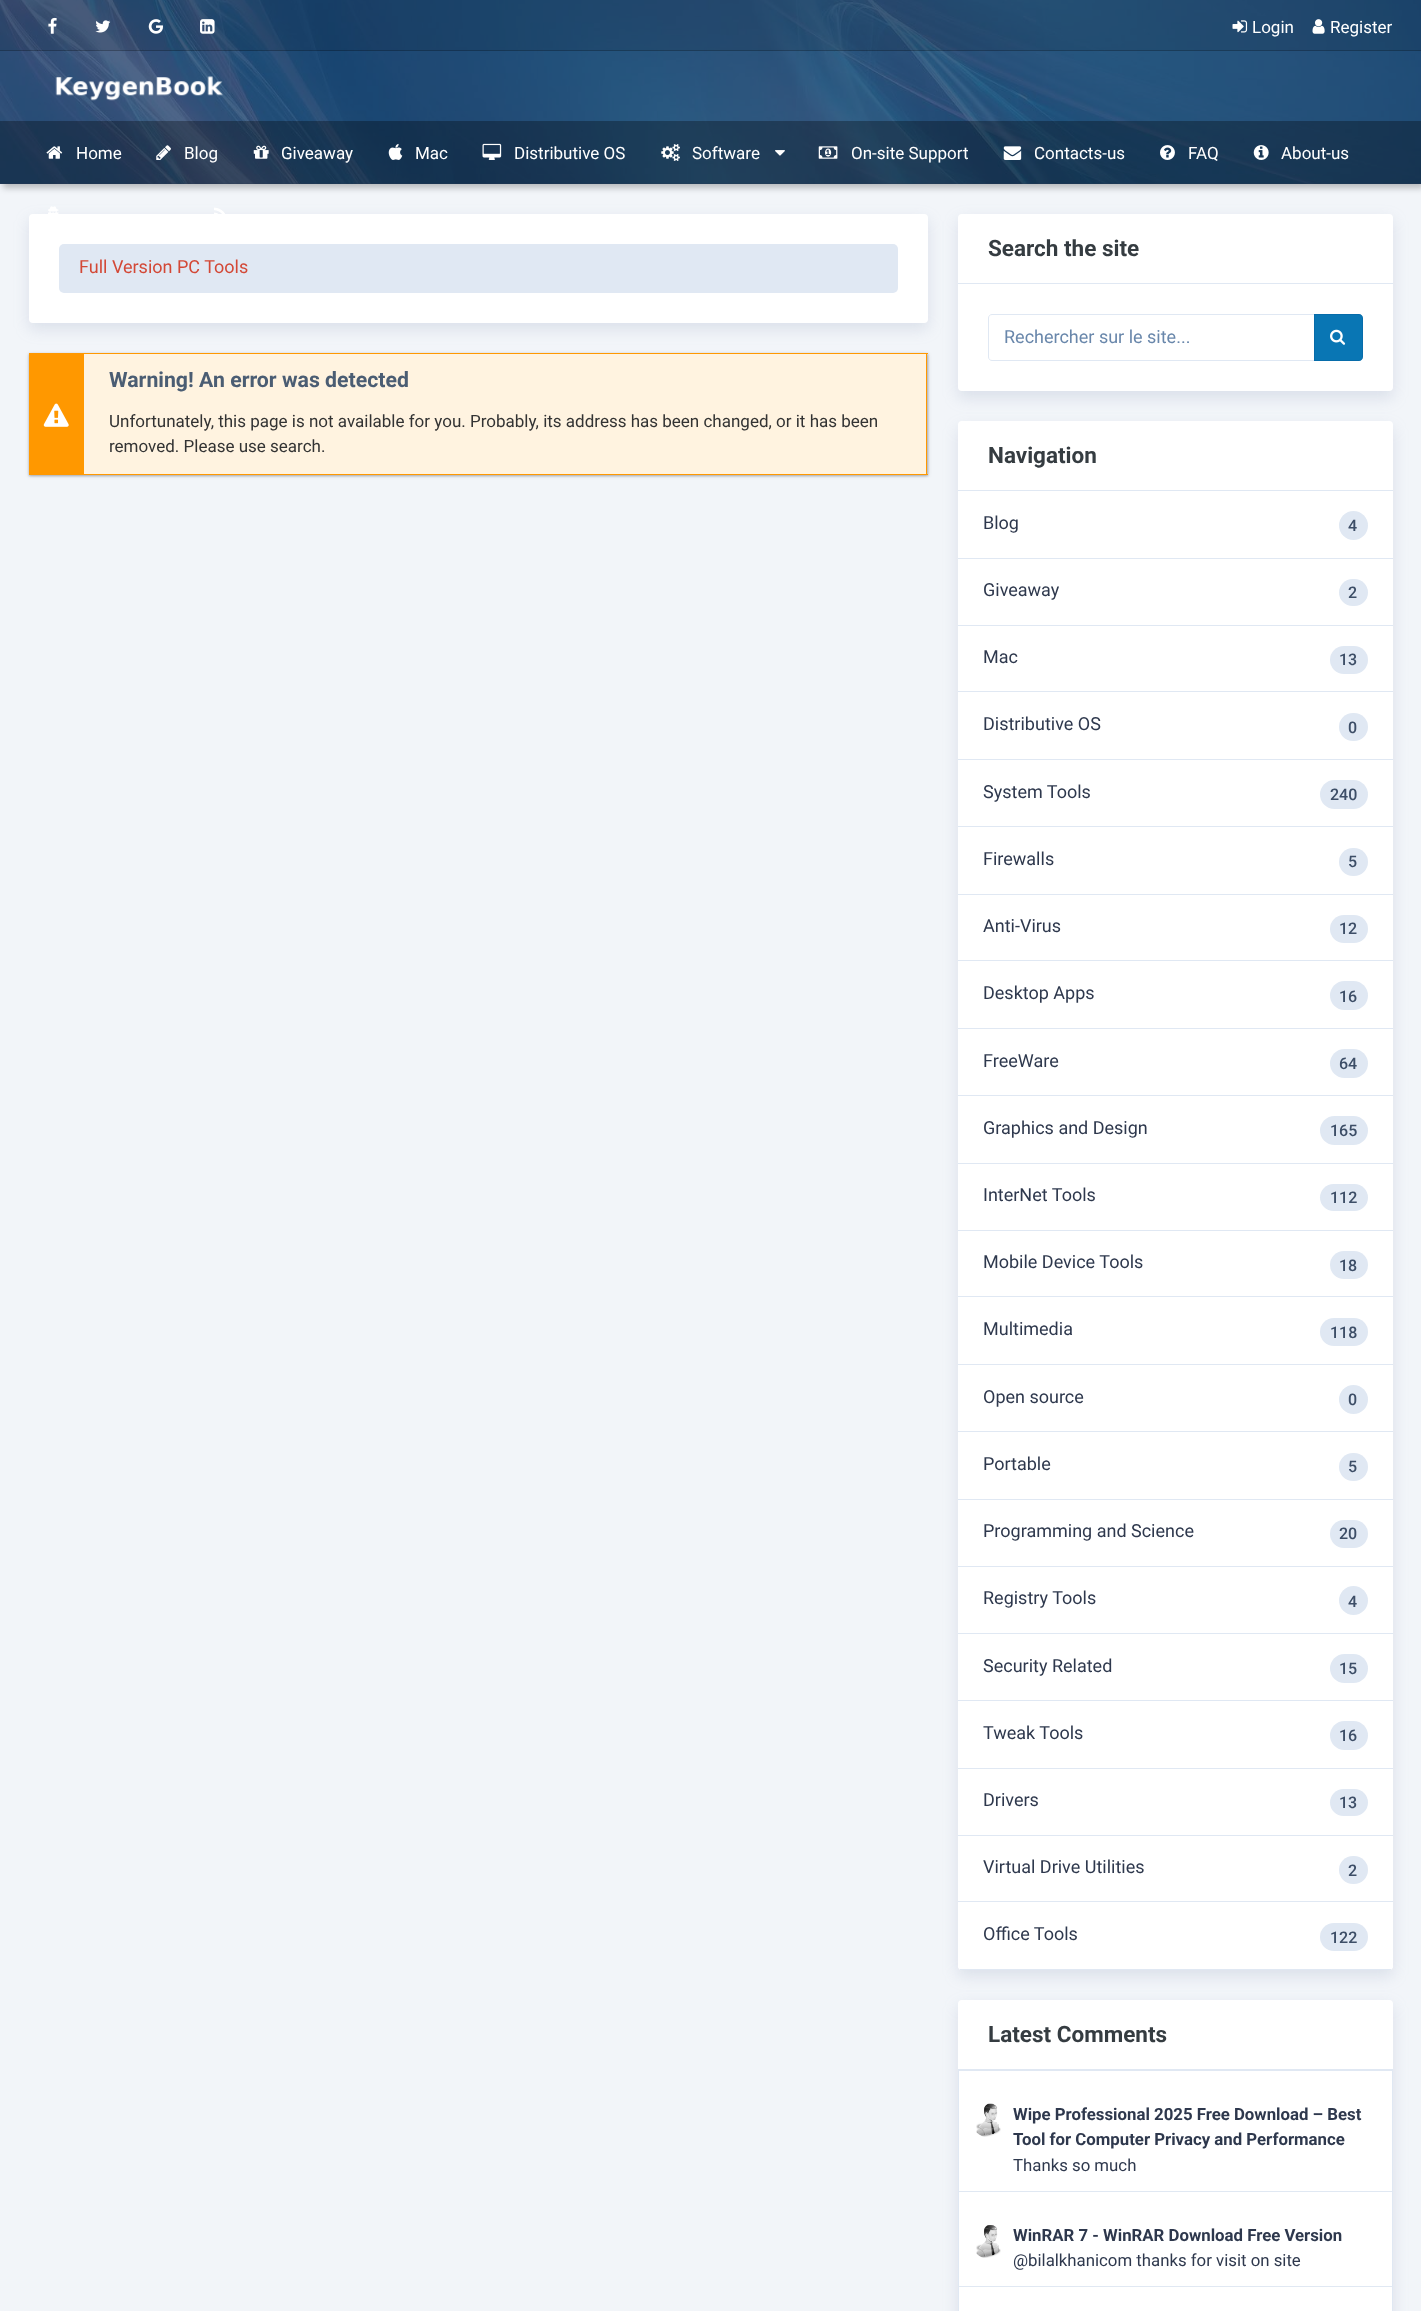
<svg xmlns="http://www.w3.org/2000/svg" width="1421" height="2311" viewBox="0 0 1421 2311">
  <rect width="100%" height="100%" fill="rgb(242,245,249)"/>
  <rect x="3" y="4" width="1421" height="184" fill="rgba(0,0,0,0.24)" filter="blur(3px)"/>
  <image x="0" y="0" width="1421" height="184" href="pic1.png"/>
  <rect x="0" y="0" width="1421" height="184" fill="rgba(5,36,86,0.7)"/>
  <rect x="0" y="0" width="1421" height="51" fill="rgba(0,0,0,0.1)"/>
  <rect x="0" y="50" width="1421" height="1" fill="rgba(0,0,0,0.2)"/>
  <image x="48" y="17" width="9" height="17" href="pic2.png"/>
  <image x="95" y="20" width="16" height="13" href="pic3.png"/>
  <image x="148" y="19" width="15" height="15" href="pic4.png"/>
  <image x="200" y="19" width="15" height="15" href="pic5.png"/>
  <image x="1232" y="20" width="16" height="13" href="pic6.png"/>
  <text x="1252" y="33" font-family="Roboto" font-size="17" fill="rgb(255,255,255)">Login</text>
  <image x="1312" y="19" width="13" height="15" href="pic7.png"/>
  <text x="1330" y="33" font-family="Roboto" font-size="17" fill="rgb(255,255,255)">Register</text>
  <image x="55" y="76" width="168" height="25" href="pic8.png"/>
  <rect x="0" y="121" width="1421" height="63" fill="rgba(0,0,0,0.3)"/>
  <image x="46" y="146" width="17" height="13" href="pic9.png"/>
  <text x="76" y="159" font-family="Roboto" font-size="17" fill="rgb(255,255,255)">Home</text>
  <image x="156" y="145" width="15" height="15" href="pic10.png"/>
  <text x="184" y="159" font-family="Roboto" font-size="17" fill="rgb(255,255,255)">Blog</text>
  <image x="253" y="145" width="16" height="14" href="pic11.png"/>
  <text x="281" y="159" font-family="Roboto" font-size="17" fill="rgb(255,255,255)">Giveaway</text>
  <image x="388" y="143" width="15" height="17" href="pic12.png"/>
  <text x="415" y="159" font-family="Roboto" font-size="17" fill="rgb(255,255,255)">Mac</text>
  <image x="482" y="143" width="20" height="17" href="pic13.png"/>
  <text x="514" y="159" font-family="Roboto" font-size="17" fill="rgb(255,255,255)">Distributive OS</text>
  <image x="661" y="144" width="19" height="17" href="pic14.png"/>
  <text x="692" y="159" font-family="Roboto" font-size="17" fill="rgb(255,255,255)">Software</text>
  <image x="775" y="150" width="10" height="6" href="pic15.png"/>
  <image x="818" y="146" width="20" height="13" href="pic16.png"/>
  <text x="851" y="159" font-family="Roboto" font-size="17" fill="rgb(255,255,255)">On-site Support</text>
  <image x="1003" y="146" width="19" height="14" href="pic17.png"/>
  <text x="1034" y="159" font-family="Roboto" font-size="17" fill="rgb(255,255,255)">Contacts-us</text>
  <image x="1160" y="145" width="15" height="15" href="pic18.png"/>
  <text x="1188" y="159" font-family="Roboto" font-size="17" fill="rgb(255,255,255)">FAQ</text>
  <image x="1253" y="145" width="16" height="15" href="pic19.png"/>
  <text x="1281" y="159" font-family="Roboto" font-size="17" fill="rgb(255,255,255)">About-us</text>
  <rect x="29" y="220" width="899" height="109" rx="4" fill="rgba(126,142,177,0.2)" filter="blur(7.5px)"/>
  <image x="48" y="206" width="11" height="8" href="pic20.png"/>
  <image x="214" y="207" width="11" height="7" href="pic21.png"/>
  <rect x="29" y="214" width="899" height="109" rx="4" fill="rgb(255,255,255)"/>
  <rect x="59" y="244" width="839" height="49" rx="5" fill="rgb(224,232,243)"/>
  <text x="79" y="273" font-family="Roboto" font-size="18" fill="rgb(211,72,54)">Full Version PC Tools</text>
  <rect x="29" y="354" width="899" height="122" fill="rgba(0,0,0,0.24)" filter="blur(1px)"/>
  <rect x="29" y="354" width="899" height="122" fill="rgba(0,0,0,0.12)" filter="blur(2px)"/>
  <rect x="84" y="354" width="842" height="120" fill="rgb(255,243,224)"/>
  <rect x="84" y="353" width="844" height="1" fill="rgb(255,152,0)"/>
  <rect x="926" y="353" width="1" height="122" fill="rgb(255,152,0)"/>
  <rect x="84" y="474" width="844" height="1" fill="rgb(255,152,0)"/>
  <rect x="29" y="353" width="55" height="122" fill="rgb(255,152,0)"/>
  <text x="109" y="387" font-family="Roboto" font-size="21.25" font-weight="bold" fill="rgb(75,93,115)">Warning! An error was detected</text>
  <image x="43" y="403" width="26" height="24" href="pic22.png"/>
  <g font-family="Roboto" font-size="17" fill="rgb(51,51,51)">
    <text>
      <tspan x="109" y="427">Unfortunately, this page is not available for you. Probably, its address has been changed, or it has been</tspan>
      <tspan x="109" y="452">removed. Please use search.</tspan>
    </text>
  </g>
  <rect x="958" y="220" width="435" height="178" rx="4" fill="rgba(126,142,177,0.2)" filter="blur(7.5px)"/>
  <rect x="958" y="214" width="435" height="177" rx="4" fill="rgb(255,255,255)"/>
  <rect x="958" y="283" width="435" height="1" fill="rgb(224,232,243)"/>
  <text x="988" y="256" font-family="Roboto" font-size="22.5" font-weight="bold" fill="rgb(53,60,65)">Search the site</text>
  <path d="M992 314.5H1314.5V360.5H992C990 360.5 988.5 359 988.5 357V318C988.5 316 990 314.5 992 314.5Z" fill="none" stroke="rgb(224,232,243)"/>
  <text x="1004" y="343" font-family="Roboto" font-size="18" fill="rgb(105,135,171)">Rechercher sur le site...</text>
  <path d="M1314 314H1359C1361 314 1363 316 1363 318V357C1363 359 1361 361 1359 361H1314Z" fill="rgb(9,118,180)"/>
  <path d="M1314.5 314.5H1359C1361 314.5 1362.5 316 1362.5 318V357C1362.5 359 1361 360.5 1359 360.5H1314.5Z" fill="none" stroke="rgba(0,40,100,0.12)"/>
  <image x="1330" y="329" width="16" height="16" href="pic23.png"/>
  <rect x="958" y="428" width="435" height="1548" rx="4" fill="rgba(126,142,177,0.2)" filter="blur(7.5px)"/>
  <rect x="958" y="421" width="435" height="1549" rx="4" fill="rgb(255,255,255)"/>
  <rect x="958" y="490" width="435" height="1" fill="rgb(224,232,243)"/>
  <text x="988" y="463" font-family="Roboto" font-size="22.5" font-weight="bold" fill="rgb(53,60,65)">Navigation</text>
  <rect x="958" y="558" width="435" height="1" fill="rgb(224,232,243)"/>
  <text x="983" y="529" font-family="Roboto" font-size="18" fill="rgb(46,56,77)">Blog</text>
  <circle cx="1353.5" cy="525.5" r="14.5" fill="rgb(224,232,243)"/>
  <text x="1348" y="531" font-family="Roboto" font-size="16" font-weight="500" fill="rgb(61,78,103)">4</text>
  <rect x="958" y="625" width="435" height="1" fill="rgb(224,232,243)"/>
  <text x="983" y="596" font-family="Roboto" font-size="18" fill="rgb(46,56,77)">Giveaway</text>
  <rect x="1339" y="579" width="29" height="27" rx="13.5" fill="rgb(224,232,243)"/>
  <text x="1348" y="598" font-family="Roboto" font-size="16" font-weight="500" fill="rgb(61,78,103)">2</text>
  <rect x="958" y="691" width="435" height="1" fill="rgb(224,232,243)"/>
  <text x="983" y="663" font-family="Roboto" font-size="18" fill="rgb(46,56,77)">Mac</text>
  <rect x="1330" y="646" width="38" height="28" rx="14" fill="rgb(224,232,243)"/>
  <text x="1339" y="665" font-family="Roboto" font-size="16" font-weight="500" fill="rgb(61,78,103)">13</text>
  <rect x="958" y="759" width="435" height="1" fill="rgb(224,232,243)"/>
  <text x="983" y="730" font-family="Roboto" font-size="18" fill="rgb(46,56,77)">Distributive OS</text>
  <rect x="1339" y="713" width="29" height="28" rx="14" fill="rgb(224,232,243)"/>
  <text x="1348" y="733" font-family="Roboto" font-size="16" font-weight="500" fill="rgb(61,78,103)">0</text>
  <rect x="958" y="826" width="435" height="1" fill="rgb(224,232,243)"/>
  <text x="983" y="798" font-family="Roboto" font-size="18" fill="rgb(46,56,77)">System Tools</text>
  <rect x="1320" y="780" width="48" height="29" rx="14.5" fill="rgb(224,232,243)"/>
  <text x="1330" y="800" font-family="Roboto" font-size="16" font-weight="500" fill="rgb(61,78,103)">240</text>
  <rect x="958" y="894" width="435" height="1" fill="rgb(224,232,243)"/>
  <text x="983" y="865" font-family="Roboto" font-size="18" fill="rgb(46,56,77)">Firewalls</text>
  <rect x="1339" y="848" width="29" height="28" rx="14" fill="rgb(224,232,243)"/>
  <text x="1348" y="867" font-family="Roboto" font-size="16" font-weight="500" fill="rgb(61,78,103)">5</text>
  <rect x="958" y="960" width="435" height="1" fill="rgb(224,232,243)"/>
  <text x="983" y="932" font-family="Roboto" font-size="18" fill="rgb(46,56,77)">Anti-Virus</text>
  <rect x="1330" y="915" width="38" height="28" rx="14" fill="rgb(224,232,243)"/>
  <text x="1339" y="934" font-family="Roboto" font-size="16" font-weight="500" fill="rgb(61,78,103)">12</text>
  <rect x="958" y="1028" width="435" height="1" fill="rgb(224,232,243)"/>
  <text x="983" y="999" font-family="Roboto" font-size="18" fill="rgb(46,56,77)">Desktop Apps</text>
  <rect x="1330" y="981" width="38" height="29" rx="14.5" fill="rgb(224,232,243)"/>
  <text x="1339" y="1002" font-family="Roboto" font-size="16" font-weight="500" fill="rgb(61,78,103)">16</text>
  <rect x="958" y="1095" width="435" height="1" fill="rgb(224,232,243)"/>
  <text x="983" y="1067" font-family="Roboto" font-size="18" fill="rgb(46,56,77)">FreeWare</text>
  <rect x="1330" y="1049" width="38" height="29" rx="14.5" fill="rgb(224,232,243)"/>
  <text x="1339" y="1069" font-family="Roboto" font-size="16" font-weight="500" fill="rgb(61,78,103)">64</text>
  <rect x="958" y="1163" width="435" height="1" fill="rgb(224,232,243)"/>
  <text x="983" y="1134" font-family="Roboto" font-size="18" fill="rgb(46,56,77)">Graphics and Design</text>
  <rect x="1320" y="1116" width="48" height="29" rx="14.5" fill="rgb(224,232,243)"/>
  <text x="1330" y="1136" font-family="Roboto" font-size="16" font-weight="500" fill="rgb(61,78,103)">165</text>
  <rect x="958" y="1230" width="435" height="1" fill="rgb(224,232,243)"/>
  <text x="983" y="1201" font-family="Roboto" font-size="18" fill="rgb(46,56,77)">InterNet Tools</text>
  <rect x="1320" y="1184" width="48" height="27" rx="13.5" fill="rgb(224,232,243)"/>
  <text x="1330" y="1203" font-family="Roboto" font-size="16" font-weight="500" fill="rgb(61,78,103)">112</text>
  <rect x="958" y="1296" width="435" height="1" fill="rgb(224,232,243)"/>
  <text x="983" y="1268" font-family="Roboto" font-size="18" fill="rgb(46,56,77)">Mobile Device Tools</text>
  <rect x="1330" y="1251" width="38" height="28" rx="14" fill="rgb(224,232,243)"/>
  <text x="1339" y="1271" font-family="Roboto" font-size="16" font-weight="500" fill="rgb(61,78,103)">18</text>
  <rect x="958" y="1364" width="435" height="1" fill="rgb(224,232,243)"/>
  <text x="983" y="1335" font-family="Roboto" font-size="18" fill="rgb(46,56,77)">Multimedia</text>
  <rect x="1320" y="1318" width="48" height="28" rx="14" fill="rgb(224,232,243)"/>
  <text x="1330" y="1338" font-family="Roboto" font-size="16" font-weight="500" fill="rgb(61,78,103)">118</text>
  <rect x="958" y="1431" width="435" height="1" fill="rgb(224,232,243)"/>
  <text x="983" y="1403" font-family="Roboto" font-size="18" fill="rgb(46,56,77)">Open source</text>
  <circle cx="1353.5" cy="1399.5" r="14.5" fill="rgb(224,232,243)"/>
  <text x="1348" y="1405" font-family="Roboto" font-size="16" font-weight="500" fill="rgb(61,78,103)">0</text>
  <rect x="958" y="1499" width="435" height="1" fill="rgb(224,232,243)"/>
  <text x="983" y="1470" font-family="Roboto" font-size="18" fill="rgb(46,56,77)">Portable</text>
  <rect x="1339" y="1453" width="29" height="28" rx="14" fill="rgb(224,232,243)"/>
  <text x="1348" y="1472" font-family="Roboto" font-size="16" font-weight="500" fill="rgb(61,78,103)">5</text>
  <rect x="958" y="1566" width="435" height="1" fill="rgb(224,232,243)"/>
  <text x="983" y="1537" font-family="Roboto" font-size="18" fill="rgb(46,56,77)">Programming and Science</text>
  <rect x="1330" y="1520" width="38" height="28" rx="14" fill="rgb(224,232,243)"/>
  <text x="1339" y="1539" font-family="Roboto" font-size="16" font-weight="500" fill="rgb(61,78,103)">20</text>
  <rect x="958" y="1633" width="435" height="1" fill="rgb(224,232,243)"/>
  <text x="983" y="1604" font-family="Roboto" font-size="18" fill="rgb(46,56,77)">Registry Tools</text>
  <circle cx="1353.5" cy="1600.5" r="14.5" fill="rgb(224,232,243)"/>
  <text x="1348" y="1607" font-family="Roboto" font-size="16" font-weight="500" fill="rgb(61,78,103)">4</text>
  <rect x="958" y="1700" width="435" height="1" fill="rgb(224,232,243)"/>
  <text x="983" y="1672" font-family="Roboto" font-size="18" fill="rgb(46,56,77)">Security Related</text>
  <rect x="1330" y="1654" width="38" height="29" rx="14.5" fill="rgb(224,232,243)"/>
  <text x="1339" y="1674" font-family="Roboto" font-size="16" font-weight="500" fill="rgb(61,78,103)">15</text>
  <rect x="958" y="1768" width="435" height="1" fill="rgb(224,232,243)"/>
  <text x="983" y="1739" font-family="Roboto" font-size="18" fill="rgb(46,56,77)">Tweak Tools</text>
  <rect x="1330" y="1721" width="38" height="29" rx="14.5" fill="rgb(224,232,243)"/>
  <text x="1339" y="1741" font-family="Roboto" font-size="16" font-weight="500" fill="rgb(61,78,103)">16</text>
  <rect x="958" y="1835" width="435" height="1" fill="rgb(224,232,243)"/>
  <text x="983" y="1806" font-family="Roboto" font-size="18" fill="rgb(46,56,77)">Drivers</text>
  <rect x="1330" y="1789" width="38" height="27" rx="13.5" fill="rgb(224,232,243)"/>
  <text x="1339" y="1808" font-family="Roboto" font-size="16" font-weight="500" fill="rgb(61,78,103)">13</text>
  <rect x="958" y="1901" width="435" height="1" fill="rgb(224,232,243)"/>
  <text x="983" y="1873" font-family="Roboto" font-size="18" fill="rgb(46,56,77)">Virtual Drive Utilities</text>
  <rect x="1339" y="1856" width="29" height="28" rx="14" fill="rgb(224,232,243)"/>
  <text x="1348" y="1876" font-family="Roboto" font-size="16" font-weight="500" fill="rgb(61,78,103)">2</text>
  <path d="M958 1903H1393V1966C1393 1968 1391 1970 1389 1970H962C960 1970 958 1968 958 1966Z" fill="rgb(255,255,255)"/>
  <rect x="960" y="1969" width="431" height="1" fill="rgb(224,232,243)"/>
  <text x="983" y="1940" font-family="Roboto" font-size="18" fill="rgb(46,56,77)">Office Tools</text>
  <rect x="1320" y="1923" width="48" height="28" rx="14" fill="rgb(224,232,243)"/>
  <text x="1330" y="1943" font-family="Roboto" font-size="16" font-weight="500" fill="rgb(61,78,103)">122</text>
  <rect x="958" y="2006" width="435" height="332" rx="4" fill="rgba(126,142,177,0.2)" filter="blur(7.5px)"/>
  <rect x="958" y="2000" width="435" height="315" rx="4" fill="rgb(255,255,255)"/>
  <rect x="958" y="2069" width="435" height="1" fill="rgb(224,232,243)"/>
  <text x="988" y="2042" font-family="Roboto" font-size="22.5" font-weight="bold" fill="rgb(53,60,65)">Latest Comments</text>
  <rect x="958.5" y="2070.5" width="434" height="122" fill="none" stroke="rgb(224,232,243)"/>
  <image x="976" y="2103" width="25" height="34" href="pic24.png"/>
  <g font-family="Roboto" font-size="16.8" font-weight="bold" fill="rgb(46,56,77)">
    <text>
      <tspan x="1013" y="2120">Wipe Professional 2025 Free Download – Best</tspan>
      <tspan x="1013" y="2145">Tool for Computer Privacy and Performance</tspan>
    </text>
  </g>
  <text x="1013" y="2171" font-family="Roboto" font-size="16.8" fill="rgb(46,56,77)">Thanks so much</text>
  <rect x="959" y="2192" width="433" height="1" fill="rgb(255,255,255)"/>
  <rect x="958.5" y="2191.5" width="434" height="96" fill="none" stroke="rgb(224,232,243)"/>
  <image x="976" y="2225" width="25" height="33" href="pic25.png"/>
  <text x="1013" y="2241" font-family="Roboto" font-size="16.8" font-weight="bold" fill="rgb(46,56,77)">WinRAR 7 - WinRAR Download Free Version</text>
  <text x="1013" y="2266" font-family="Roboto" font-size="16.8" fill="rgb(46,56,77)">@bilalkhanicom thanks for visit on site</text>
  <rect x="959" y="2287" width="433" height="1" fill="rgb(255,255,255)"/>
  <rect x="958.5" y="2286.5" width="434" height="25" fill="none" stroke="rgb(224,232,243)"/>
</svg>
